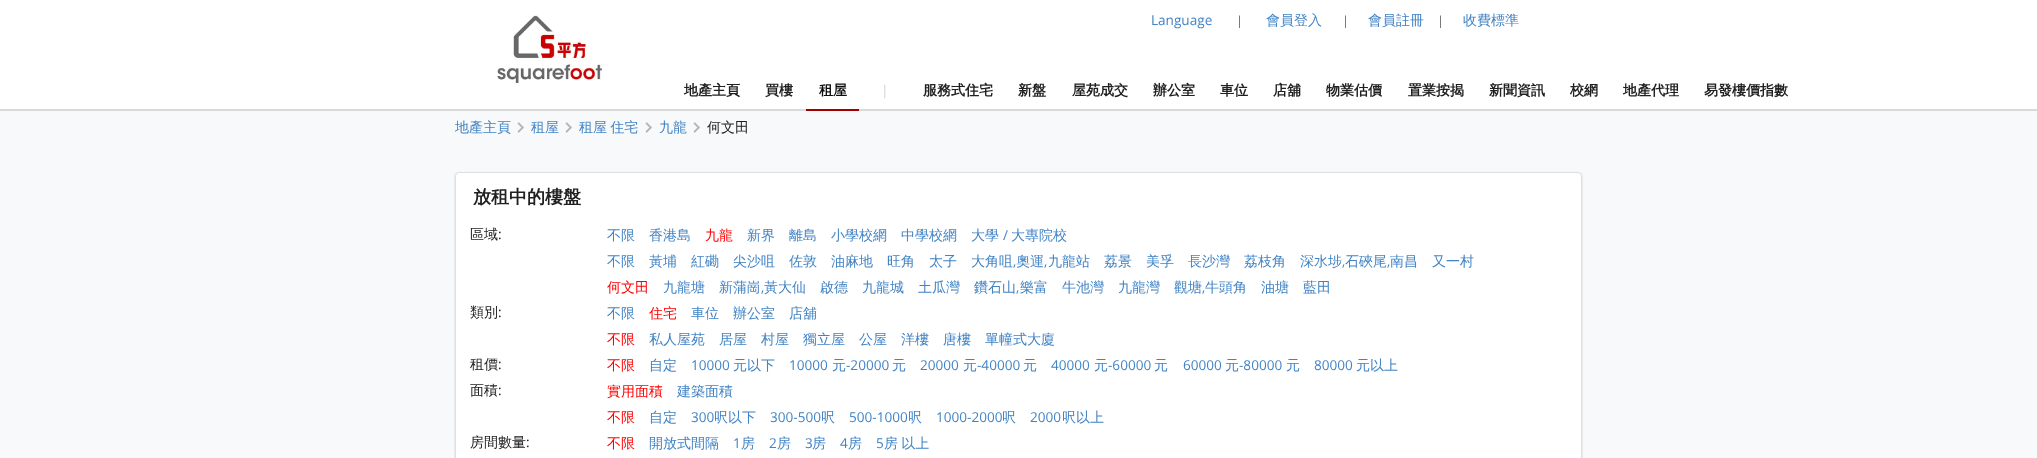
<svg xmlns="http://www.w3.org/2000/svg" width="2037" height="458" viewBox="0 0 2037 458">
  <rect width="100%" height="100%" fill="rgb(255,255,255)"/>
  <image x="497" y="15" width="105" height="69" href="pic1.png"/>
  <text x="1151" y="25" font-family="Open Sans" font-size="14" fill="rgb(65,131,196)">Language</text>
  <text x="1236" y="25" font-family="Open Sans" font-size="13" fill="rgb(102,102,102)">|</text>
  <text x="1266" y="25" font-family="WenQuanYi Zen Hei" font-size="14" font-weight="500" fill="rgb(65,131,196)">會員登入</text>
  <text x="1342" y="25" font-family="Open Sans" font-size="13" fill="rgb(102,102,102)">|</text>
  <text x="1368" y="25" font-family="WenQuanYi Zen Hei" font-size="14" font-weight="500" fill="rgb(65,131,196)">會員註冊</text>
  <text x="1437" y="25" font-family="Open Sans" font-size="13" fill="rgb(102,102,102)">|</text>
  <text x="1463" y="25" font-family="WenQuanYi Zen Hei" font-size="14" font-weight="500" fill="rgb(65,131,196)">收費標準</text>
  <g font-family="WenQuanYi Zen Hei" font-size="14" font-weight="bold" fill="rgb(32,32,33)">
    <text x="684" y="95">地產主頁</text>
    <text x="765" y="95">買樓</text>
  </g>
  <rect x="0" y="109" width="2037" height="2" fill="rgb(216,217,218)"/>
  <rect x="806" y="109" width="53" height="2" fill="rgb(161,0,0)"/>
  <text x="819" y="95" font-family="WenQuanYi Zen Hei" font-size="14" font-weight="bold" fill="rgb(13,13,13)">租屋</text>
  <text x="881" y="95" font-family="Open Sans" font-size="14" fill="rgb(211,211,211)">|</text>
  <g font-family="WenQuanYi Zen Hei" font-size="14" font-weight="bold" fill="rgb(32,32,33)">
    <text x="923" y="95">服務式住宅</text>
    <text x="1018" y="95">新盤</text>
    <text x="1072" y="95">屋苑成交</text>
    <text x="1153" y="95">辦公室</text>
    <text x="1220" y="95">車位</text>
    <text x="1273" y="95">店舖</text>
    <text x="1326" y="95">物業估價</text>
    <text x="1408" y="95">置業按揭</text>
    <text x="1489" y="95">新聞資訊</text>
    <text x="1570" y="95">校網</text>
    <text x="1623" y="95">地產代理</text>
    <text x="1704" y="95">易發樓價指數</text>
  </g>
  <rect x="0" y="111" width="2037" height="347" fill="rgb(248,249,250)"/>
  <text x="455" y="132" font-family="WenQuanYi Zen Hei" font-size="14" font-weight="500" fill="rgb(65,131,196)">地產主頁</text>
  <image x="517" y="122" width="7" height="11" href="pic2.png"/>
  <text x="531" y="132" font-family="WenQuanYi Zen Hei" font-size="14" font-weight="500" fill="rgb(65,131,196)">租屋</text>
  <image x="565" y="122" width="7" height="11" href="pic2.png"/>
  <text x="579" y="132" word-spacing="-1" font-family="WenQuanYi Zen Hei" font-size="14" font-weight="500" fill="rgb(65,131,196)">租屋 住宅</text>
  <image x="645" y="122" width="7" height="11" href="pic2.png"/>
  <text x="659" y="132" font-family="WenQuanYi Zen Hei" font-size="14" font-weight="500" fill="rgb(65,131,196)">九龍</text>
  <image x="693" y="122" width="7" height="11" href="pic2.png"/>
  <text x="707" y="132" font-family="WenQuanYi Zen Hei" font-size="14" font-weight="500" fill="rgb(32,32,33)">何文田</text>
  <rect x="455" y="173" width="1127" height="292" rx="4" fill="rgba(34,36,38,0.15)" filter="blur(1px)"/>
  <rect x="455" y="172" width="1127" height="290" rx="4" fill="rgb(255,255,255)"/>
  <rect x="455.5" y="172.5" width="1126" height="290" rx="3.5" fill="none" stroke="rgba(34,36,38,0.15)"/>
  <text x="473" y="203" font-family="WenQuanYi Zen Hei" font-size="18" font-weight="bold" fill="rgb(32,32,33)">放租中的樓盤</text>
  <text x="470" y="239" font-family="WenQuanYi Zen Hei" font-size="14" font-weight="500" fill="rgb(32,32,33)">區域</text>
  <text x="498" y="239" font-family="Open Sans" font-size="14" fill="rgb(32,32,33)">:</text>
  <g font-family="WenQuanYi Zen Hei" font-size="14" font-weight="500" fill="rgb(65,131,196)">
    <text x="607" y="240">不限</text>
    <text x="649" y="240">香港島</text>
  </g>
  <text x="705" y="240" font-family="WenQuanYi Zen Hei" font-size="14" font-weight="500" fill="rgb(255,0,0)">九龍</text>
  <g font-family="WenQuanYi Zen Hei" font-size="14" font-weight="500" fill="rgb(65,131,196)">
    <text x="747" y="240">新界</text>
    <text x="789" y="240">離島</text>
    <text x="831" y="240">小學校網</text>
    <text x="901" y="240">中學校網</text>
    <text x="971" y="240">大學</text>
  </g>
  <text x="1003" y="240" font-family="Open Sans" font-size="14" fill="rgb(65,131,196)">/</text>
  <g font-family="WenQuanYi Zen Hei" font-size="14" font-weight="500" fill="rgb(65,131,196)">
    <text x="1011" y="240">大專院校</text>
    <text x="607" y="266">不限</text>
    <text x="649" y="266">黃埔</text>
    <text x="691" y="266">紅磡</text>
    <text x="733" y="266">尖沙咀</text>
    <text x="789" y="266">佐敦</text>
    <text x="831" y="266">油麻地</text>
    <text x="887" y="266">旺角</text>
    <text x="929" y="266">太子</text>
    <text x="971" y="266">大角咀</text>
  </g>
  <text x="1013" y="266" font-family="Open Sans" font-size="14" fill="rgb(65,131,196)">,</text>
  <text x="1016" y="266" font-family="WenQuanYi Zen Hei" font-size="14" font-weight="500" fill="rgb(65,131,196)">奧運</text>
  <text x="1044" y="266" font-family="Open Sans" font-size="14" fill="rgb(65,131,196)">,</text>
  <g font-family="WenQuanYi Zen Hei" font-size="14" font-weight="500" fill="rgb(65,131,196)">
    <text x="1048" y="266">九龍站</text>
    <text x="1104" y="266">荔景</text>
    <text x="1146" y="266">美孚</text>
    <text x="1188" y="266">長沙灣</text>
    <text x="1244" y="266">荔枝角</text>
    <text x="1300" y="266">深水埗</text>
  </g>
  <text x="1342" y="266" font-family="Open Sans" font-size="14" fill="rgb(65,131,196)">,</text>
  <text x="1345" y="266" font-family="WenQuanYi Zen Hei" font-size="14" font-weight="500" fill="rgb(65,131,196)">石硤尾</text>
  <text x="1387" y="266" font-family="Open Sans" font-size="14" fill="rgb(65,131,196)">,</text>
  <g font-family="WenQuanYi Zen Hei" font-size="14" font-weight="500" fill="rgb(65,131,196)">
    <text x="1390" y="266">南昌</text>
    <text x="1432" y="266">又一村</text>
  </g>
  <text x="607" y="292" font-family="WenQuanYi Zen Hei" font-size="14" font-weight="500" fill="rgb(255,0,0)">何文田</text>
  <g font-family="WenQuanYi Zen Hei" font-size="14" font-weight="500" fill="rgb(65,131,196)">
    <text x="663" y="292">九龍塘</text>
    <text x="719" y="292">新蒲崗</text>
  </g>
  <text x="761" y="292" font-family="Open Sans" font-size="14" fill="rgb(65,131,196)">,</text>
  <g font-family="WenQuanYi Zen Hei" font-size="14" font-weight="500" fill="rgb(65,131,196)">
    <text x="764" y="292">黃大仙</text>
    <text x="820" y="292">啟德</text>
    <text x="862" y="292">九龍城</text>
    <text x="918" y="292">土瓜灣</text>
    <text x="974" y="292">鑽石山</text>
  </g>
  <text x="1016" y="292" font-family="Open Sans" font-size="14" fill="rgb(65,131,196)">,</text>
  <g font-family="WenQuanYi Zen Hei" font-size="14" font-weight="500" fill="rgb(65,131,196)">
    <text x="1020" y="292">樂富</text>
    <text x="1062" y="292">牛池灣</text>
    <text x="1118" y="292">九龍灣</text>
    <text x="1174" y="292">觀塘</text>
  </g>
  <text x="1202" y="292" font-family="Open Sans" font-size="14" fill="rgb(65,131,196)">,</text>
  <g font-family="WenQuanYi Zen Hei" font-size="14" font-weight="500" fill="rgb(65,131,196)">
    <text x="1205" y="292">牛頭角</text>
    <text x="1261" y="292">油塘</text>
    <text x="1303" y="292">藍田</text>
  </g>
  <text x="470" y="317" font-family="WenQuanYi Zen Hei" font-size="14" font-weight="500" fill="rgb(32,32,33)">類別</text>
  <text x="498" y="317" font-family="Open Sans" font-size="14" fill="rgb(32,32,33)">:</text>
  <text x="607" y="318" font-family="WenQuanYi Zen Hei" font-size="14" font-weight="500" fill="rgb(65,131,196)">不限</text>
  <text x="649" y="318" font-family="WenQuanYi Zen Hei" font-size="14" font-weight="500" fill="rgb(255,0,0)">住宅</text>
  <g font-family="WenQuanYi Zen Hei" font-size="14" font-weight="500" fill="rgb(65,131,196)">
    <text x="691" y="318">車位</text>
    <text x="733" y="318">辦公室</text>
    <text x="789" y="318">店舖</text>
  </g>
  <text x="607" y="344" font-family="WenQuanYi Zen Hei" font-size="14" font-weight="500" fill="rgb(255,0,0)">不限</text>
  <g font-family="WenQuanYi Zen Hei" font-size="14" font-weight="500" fill="rgb(65,131,196)">
    <text x="649" y="344">私人屋苑</text>
    <text x="719" y="344">居屋</text>
    <text x="761" y="344">村屋</text>
    <text x="803" y="344">獨立屋</text>
    <text x="859" y="344">公屋</text>
    <text x="901" y="344">洋樓</text>
    <text x="943" y="344">唐樓</text>
    <text x="985" y="344">單幢式大廈</text>
  </g>
  <text x="470" y="369" font-family="WenQuanYi Zen Hei" font-size="14" font-weight="500" fill="rgb(32,32,33)">租價</text>
  <text x="498" y="369" font-family="Open Sans" font-size="14" fill="rgb(32,32,33)">:</text>
  <text x="607" y="370" font-family="WenQuanYi Zen Hei" font-size="14" font-weight="500" fill="rgb(255,0,0)">不限</text>
  <text x="649" y="370" font-family="WenQuanYi Zen Hei" font-size="14" font-weight="500" fill="rgb(65,131,196)">自定</text>
  <text x="691" y="370" font-family="Open Sans" font-size="14" fill="rgb(65,131,196)">10000</text>
  <text x="733" y="370" font-family="WenQuanYi Zen Hei" font-size="14" font-weight="500" fill="rgb(65,131,196)">元以下</text>
  <text x="789" y="370" font-family="Open Sans" font-size="14" fill="rgb(65,131,196)">10000</text>
  <text x="832" y="370" font-family="WenQuanYi Zen Hei" font-size="14" font-weight="500" fill="rgb(65,131,196)">元</text>
  <text x="846" y="370" font-family="Open Sans" font-size="14" fill="rgb(65,131,196)">-20000</text>
  <text x="892" y="370" font-family="WenQuanYi Zen Hei" font-size="14" font-weight="500" fill="rgb(65,131,196)">元</text>
  <text x="920" y="370" font-family="Open Sans" font-size="14" fill="rgb(65,131,196)">20000</text>
  <text x="963" y="370" font-family="WenQuanYi Zen Hei" font-size="14" font-weight="500" fill="rgb(65,131,196)">元</text>
  <text x="977" y="370" font-family="Open Sans" font-size="14" fill="rgb(65,131,196)">-40000</text>
  <text x="1023" y="370" font-family="WenQuanYi Zen Hei" font-size="14" font-weight="500" fill="rgb(65,131,196)">元</text>
  <text x="1051" y="370" font-family="Open Sans" font-size="14" fill="rgb(65,131,196)">40000</text>
  <text x="1094" y="370" font-family="WenQuanYi Zen Hei" font-size="14" font-weight="500" fill="rgb(65,131,196)">元</text>
  <text x="1108" y="370" font-family="Open Sans" font-size="14" fill="rgb(65,131,196)">-60000</text>
  <text x="1154" y="370" font-family="WenQuanYi Zen Hei" font-size="14" font-weight="500" fill="rgb(65,131,196)">元</text>
  <text x="1183" y="370" font-family="Open Sans" font-size="14" fill="rgb(65,131,196)">60000</text>
  <text x="1225" y="370" font-family="WenQuanYi Zen Hei" font-size="14" font-weight="500" fill="rgb(65,131,196)">元</text>
  <text x="1239" y="370" font-family="Open Sans" font-size="14" fill="rgb(65,131,196)">-80000</text>
  <text x="1286" y="370" font-family="WenQuanYi Zen Hei" font-size="14" font-weight="500" fill="rgb(65,131,196)">元</text>
  <text x="1314" y="370" font-family="Open Sans" font-size="14" fill="rgb(65,131,196)">80000</text>
  <text x="1356" y="370" font-family="WenQuanYi Zen Hei" font-size="14" font-weight="500" fill="rgb(65,131,196)">元以上</text>
  <text x="470" y="395" font-family="WenQuanYi Zen Hei" font-size="14" font-weight="500" fill="rgb(32,32,33)">面積</text>
  <text x="498" y="395" font-family="Open Sans" font-size="14" fill="rgb(32,32,33)">:</text>
  <text x="607" y="396" font-family="WenQuanYi Zen Hei" font-size="14" font-weight="500" fill="rgb(255,0,0)">實用面積</text>
  <text x="677" y="396" font-family="WenQuanYi Zen Hei" font-size="14" font-weight="500" fill="rgb(65,131,196)">建築面積</text>
  <text x="607" y="422" font-family="WenQuanYi Zen Hei" font-size="14" font-weight="500" fill="rgb(255,0,0)">不限</text>
  <text x="649" y="422" font-family="WenQuanYi Zen Hei" font-size="14" font-weight="500" fill="rgb(65,131,196)">自定</text>
  <text x="691" y="422" font-family="Open Sans" font-size="14" fill="rgb(65,131,196)">300</text>
  <text x="714" y="422" font-family="WenQuanYi Zen Hei" font-size="14" font-weight="500" fill="rgb(65,131,196)">呎以下</text>
  <text x="770" y="422" font-family="Open Sans" font-size="14" fill="rgb(65,131,196)">300-500</text>
  <text x="821" y="422" font-family="WenQuanYi Zen Hei" font-size="14" font-weight="500" fill="rgb(65,131,196)">呎</text>
  <text x="849" y="422" font-family="Open Sans" font-size="14" fill="rgb(65,131,196)">500-1000</text>
  <text x="908" y="422" font-family="WenQuanYi Zen Hei" font-size="14" font-weight="500" fill="rgb(65,131,196)">呎</text>
  <text x="936" y="422" font-family="Open Sans" font-size="14" fill="rgb(65,131,196)">1000-2000</text>
  <text x="1002" y="422" font-family="WenQuanYi Zen Hei" font-size="14" font-weight="500" fill="rgb(65,131,196)">呎</text>
  <text x="1030" y="422" font-family="Open Sans" font-size="14" fill="rgb(65,131,196)">2000</text>
  <text x="1062" y="422" font-family="WenQuanYi Zen Hei" font-size="14" font-weight="500" fill="rgb(65,131,196)">呎以上</text>
  <text x="470" y="447" font-family="WenQuanYi Zen Hei" font-size="14" font-weight="500" fill="rgb(32,32,33)">房間數量</text>
  <text x="526" y="447" font-family="Open Sans" font-size="14" fill="rgb(32,32,33)">:</text>
  <text x="607" y="448" font-family="WenQuanYi Zen Hei" font-size="14" font-weight="500" fill="rgb(255,0,0)">不限</text>
  <text x="649" y="448" font-family="WenQuanYi Zen Hei" font-size="14" font-weight="500" fill="rgb(65,131,196)">開放式間隔</text>
  <text x="733" y="448" font-family="Open Sans" font-size="14" fill="rgb(65,131,196)">1</text>
  <text x="741" y="448" font-family="WenQuanYi Zen Hei" font-size="14" font-weight="500" fill="rgb(65,131,196)">房</text>
  <text x="769" y="448" font-family="Open Sans" font-size="14" fill="rgb(65,131,196)">2</text>
  <text x="777" y="448" font-family="WenQuanYi Zen Hei" font-size="14" font-weight="500" fill="rgb(65,131,196)">房</text>
  <text x="805" y="448" font-family="Open Sans" font-size="14" fill="rgb(65,131,196)">3</text>
  <text x="812" y="448" font-family="WenQuanYi Zen Hei" font-size="14" font-weight="500" fill="rgb(65,131,196)">房</text>
  <text x="840" y="448" font-family="Open Sans" font-size="14" fill="rgb(65,131,196)">4</text>
  <text x="848" y="448" font-family="WenQuanYi Zen Hei" font-size="14" font-weight="500" fill="rgb(65,131,196)">房</text>
  <text x="876" y="448" font-family="Open Sans" font-size="14" fill="rgb(65,131,196)">5</text>
  <text x="884" y="448" word-spacing="-1" font-family="WenQuanYi Zen Hei" font-size="14" font-weight="500" fill="rgb(65,131,196)">房 以上</text>
</svg>
